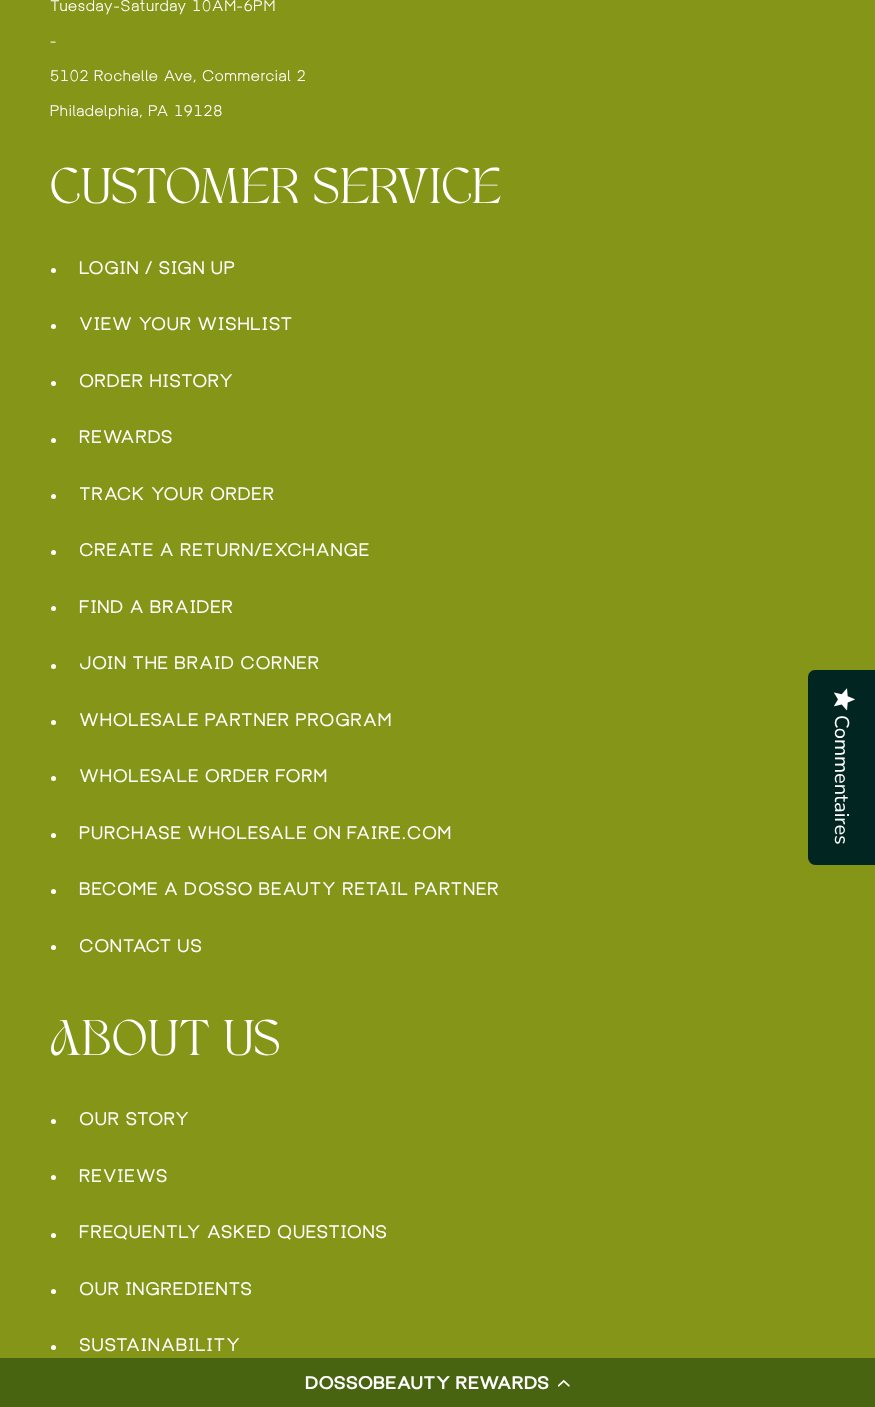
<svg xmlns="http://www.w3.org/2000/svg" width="875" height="1407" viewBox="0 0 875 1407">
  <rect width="100%" height="100%" fill="rgb(132,149,23)"/>
  <g font-family="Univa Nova" font-size="15" letter-spacing="0.75" fill="rgb(255,255,255)">
    <text x="50" y="11">Tuesday-Saturday 10AM-6PM</text>
    <text x="50" y="46">-</text>
    <text x="50" y="81">5102 Rochelle Ave, Commercial 2</text>
    <text x="50" y="116">Philadelphia, PA 19128</text>
  </g>
  <text x="50" y="203" font-family="'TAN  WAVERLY'" font-size="35" letter-spacing="0.75" fill="rgb(255,255,255)">CUSTOMER SERVICE</text>
  <circle cx="53.5" cy="270.5" r="2.5" fill="rgb(255,255,255)"/>
  <text x="79" y="274" font-family="Univa Nova" font-size="17.5" font-weight="500" letter-spacing="0.75" fill="rgb(255,255,255)">LOGIN / SIGN UP</text>
  <circle cx="53.5" cy="326.5" r="2.5" fill="rgb(255,255,255)"/>
  <text x="79" y="330" font-family="Univa Nova" font-size="17.5" font-weight="500" letter-spacing="0.75" fill="rgb(255,255,255)">VIEW YOUR WISHLIST</text>
  <circle cx="53.5" cy="383.5" r="2.5" fill="rgb(255,255,255)"/>
  <text x="79" y="387" font-family="Univa Nova" font-size="17.5" font-weight="500" letter-spacing="0.75" fill="rgb(255,255,255)">ORDER HISTORY</text>
  <circle cx="53.5" cy="440.5" r="2.5" fill="rgb(255,255,255)"/>
  <text x="79" y="443" font-family="Univa Nova" font-size="17.5" font-weight="500" letter-spacing="0.75" fill="rgb(255,255,255)">REWARDS</text>
  <circle cx="53.5" cy="496.5" r="2.5" fill="rgb(255,255,255)"/>
  <text x="79" y="500" font-family="Univa Nova" font-size="17.5" font-weight="500" letter-spacing="0.75" fill="rgb(255,255,255)">TRACK YOUR ORDER</text>
  <circle cx="53.5" cy="552.5" r="2.5" fill="rgb(255,255,255)"/>
  <text x="79" y="556" font-family="Univa Nova" font-size="17.5" font-weight="500" letter-spacing="0.75" fill="rgb(255,255,255)">CREATE A RETURN/EXCHANGE</text>
  <circle cx="53.5" cy="608.5" r="2.5" fill="rgb(255,255,255)"/>
  <text x="79" y="613" font-family="Univa Nova" font-size="17.5" font-weight="500" letter-spacing="0.75" fill="rgb(255,255,255)">FIND A BRAIDER</text>
  <circle cx="53.5" cy="666.5" r="2.5" fill="rgb(255,255,255)"/>
  <text x="79" y="669" font-family="Univa Nova" font-size="17.5" font-weight="500" letter-spacing="0.75" fill="rgb(255,255,255)">JOIN THE BRAID CORNER</text>
  <circle cx="53.5" cy="722.5" r="2.5" fill="rgb(255,255,255)"/>
  <text x="79" y="726" font-family="Univa Nova" font-size="17.5" font-weight="500" letter-spacing="0.75" fill="rgb(255,255,255)">WHOLESALE PARTNER PROGRAM</text>
  <circle cx="53.5" cy="778.5" r="2.5" fill="rgb(255,255,255)"/>
  <text x="79" y="782" font-family="Univa Nova" font-size="17.5" font-weight="500" letter-spacing="0.75" fill="rgb(255,255,255)">WHOLESALE ORDER FORM</text>
  <circle cx="53.5" cy="835.5" r="2.5" fill="rgb(255,255,255)"/>
  <text x="79" y="839" font-family="Univa Nova" font-size="17.5" font-weight="500" letter-spacing="0.75" fill="rgb(255,255,255)">PURCHASE WHOLESALE ON FAIRE.COM</text>
  <circle cx="53.5" cy="891.5" r="2.5" fill="rgb(255,255,255)"/>
  <text x="79" y="895" font-family="Univa Nova" font-size="17.5" font-weight="500" letter-spacing="0.75" fill="rgb(255,255,255)">BECOME A DOSSO BEAUTY RETAIL PARTNER</text>
  <circle cx="53.5" cy="947.5" r="2.5" fill="rgb(255,255,255)"/>
  <text x="79" y="952" font-family="Univa Nova" font-size="17.5" font-weight="500" letter-spacing="0.75" fill="rgb(255,255,255)">CONTACT US</text>
  <text x="50" y="1055" font-family="'TAN  WAVERLY'" font-size="35" letter-spacing="0.75" fill="rgb(255,255,255)">ABOUT US</text>
  <circle cx="53.5" cy="1121.5" r="2.5" fill="rgb(255,255,255)"/>
  <text x="79" y="1125" font-family="Univa Nova" font-size="17.5" font-weight="500" letter-spacing="0.75" fill="rgb(255,255,255)">OUR STORY</text>
  <circle cx="53.5" cy="1177.5" r="2.5" fill="rgb(255,255,255)"/>
  <text x="79" y="1182" font-family="Univa Nova" font-size="17.5" font-weight="500" letter-spacing="0.75" fill="rgb(255,255,255)">REVIEWS</text>
  <circle cx="53.5" cy="1235.5" r="2.5" fill="rgb(255,255,255)"/>
  <text x="79" y="1238" font-family="Univa Nova" font-size="17.5" font-weight="500" letter-spacing="0.75" fill="rgb(255,255,255)">FREQUENTLY ASKED QUESTIONS</text>
  <circle cx="53.5" cy="1291.5" r="2.5" fill="rgb(255,255,255)"/>
  <text x="79" y="1295" font-family="Univa Nova" font-size="17.5" font-weight="500" letter-spacing="0.75" fill="rgb(255,255,255)">OUR INGREDIENTS</text>
  <circle cx="53.5" cy="1347.5" r="2.5" fill="rgb(255,255,255)"/>
  <text x="79" y="1351" font-family="Univa Nova" font-size="17.5" font-weight="500" letter-spacing="0.75" fill="rgb(255,255,255)">SUSTAINABILITY</text>
  <path d="M875 670V865H815C811 865 808 861 808 857V678C808 673 811 670 815 670Z" fill="rgb(1,38,34)"/>
  <image x="833" y="688" width="22" height="23" href="pic1.png"/>
  <text x="835" y="715" transform="rotate(90 835 715)" font-family="Nunito Sans" font-size="20" font-weight="200" fill="rgb(255,255,255)">Commentaires</text>
  <rect x="0" y="1358" width="875" height="49" fill="rgb(73,100,16)"/>
  <text x="305" y="1389" font-family="Univa Nova" font-size="17.5" font-weight="bold" fill="rgb(255,255,255)">DOSSOBEAUTY REWARDS</text>
  <image x="558" y="1379" width="12" height="8" href="pic2.png"/>
</svg>
